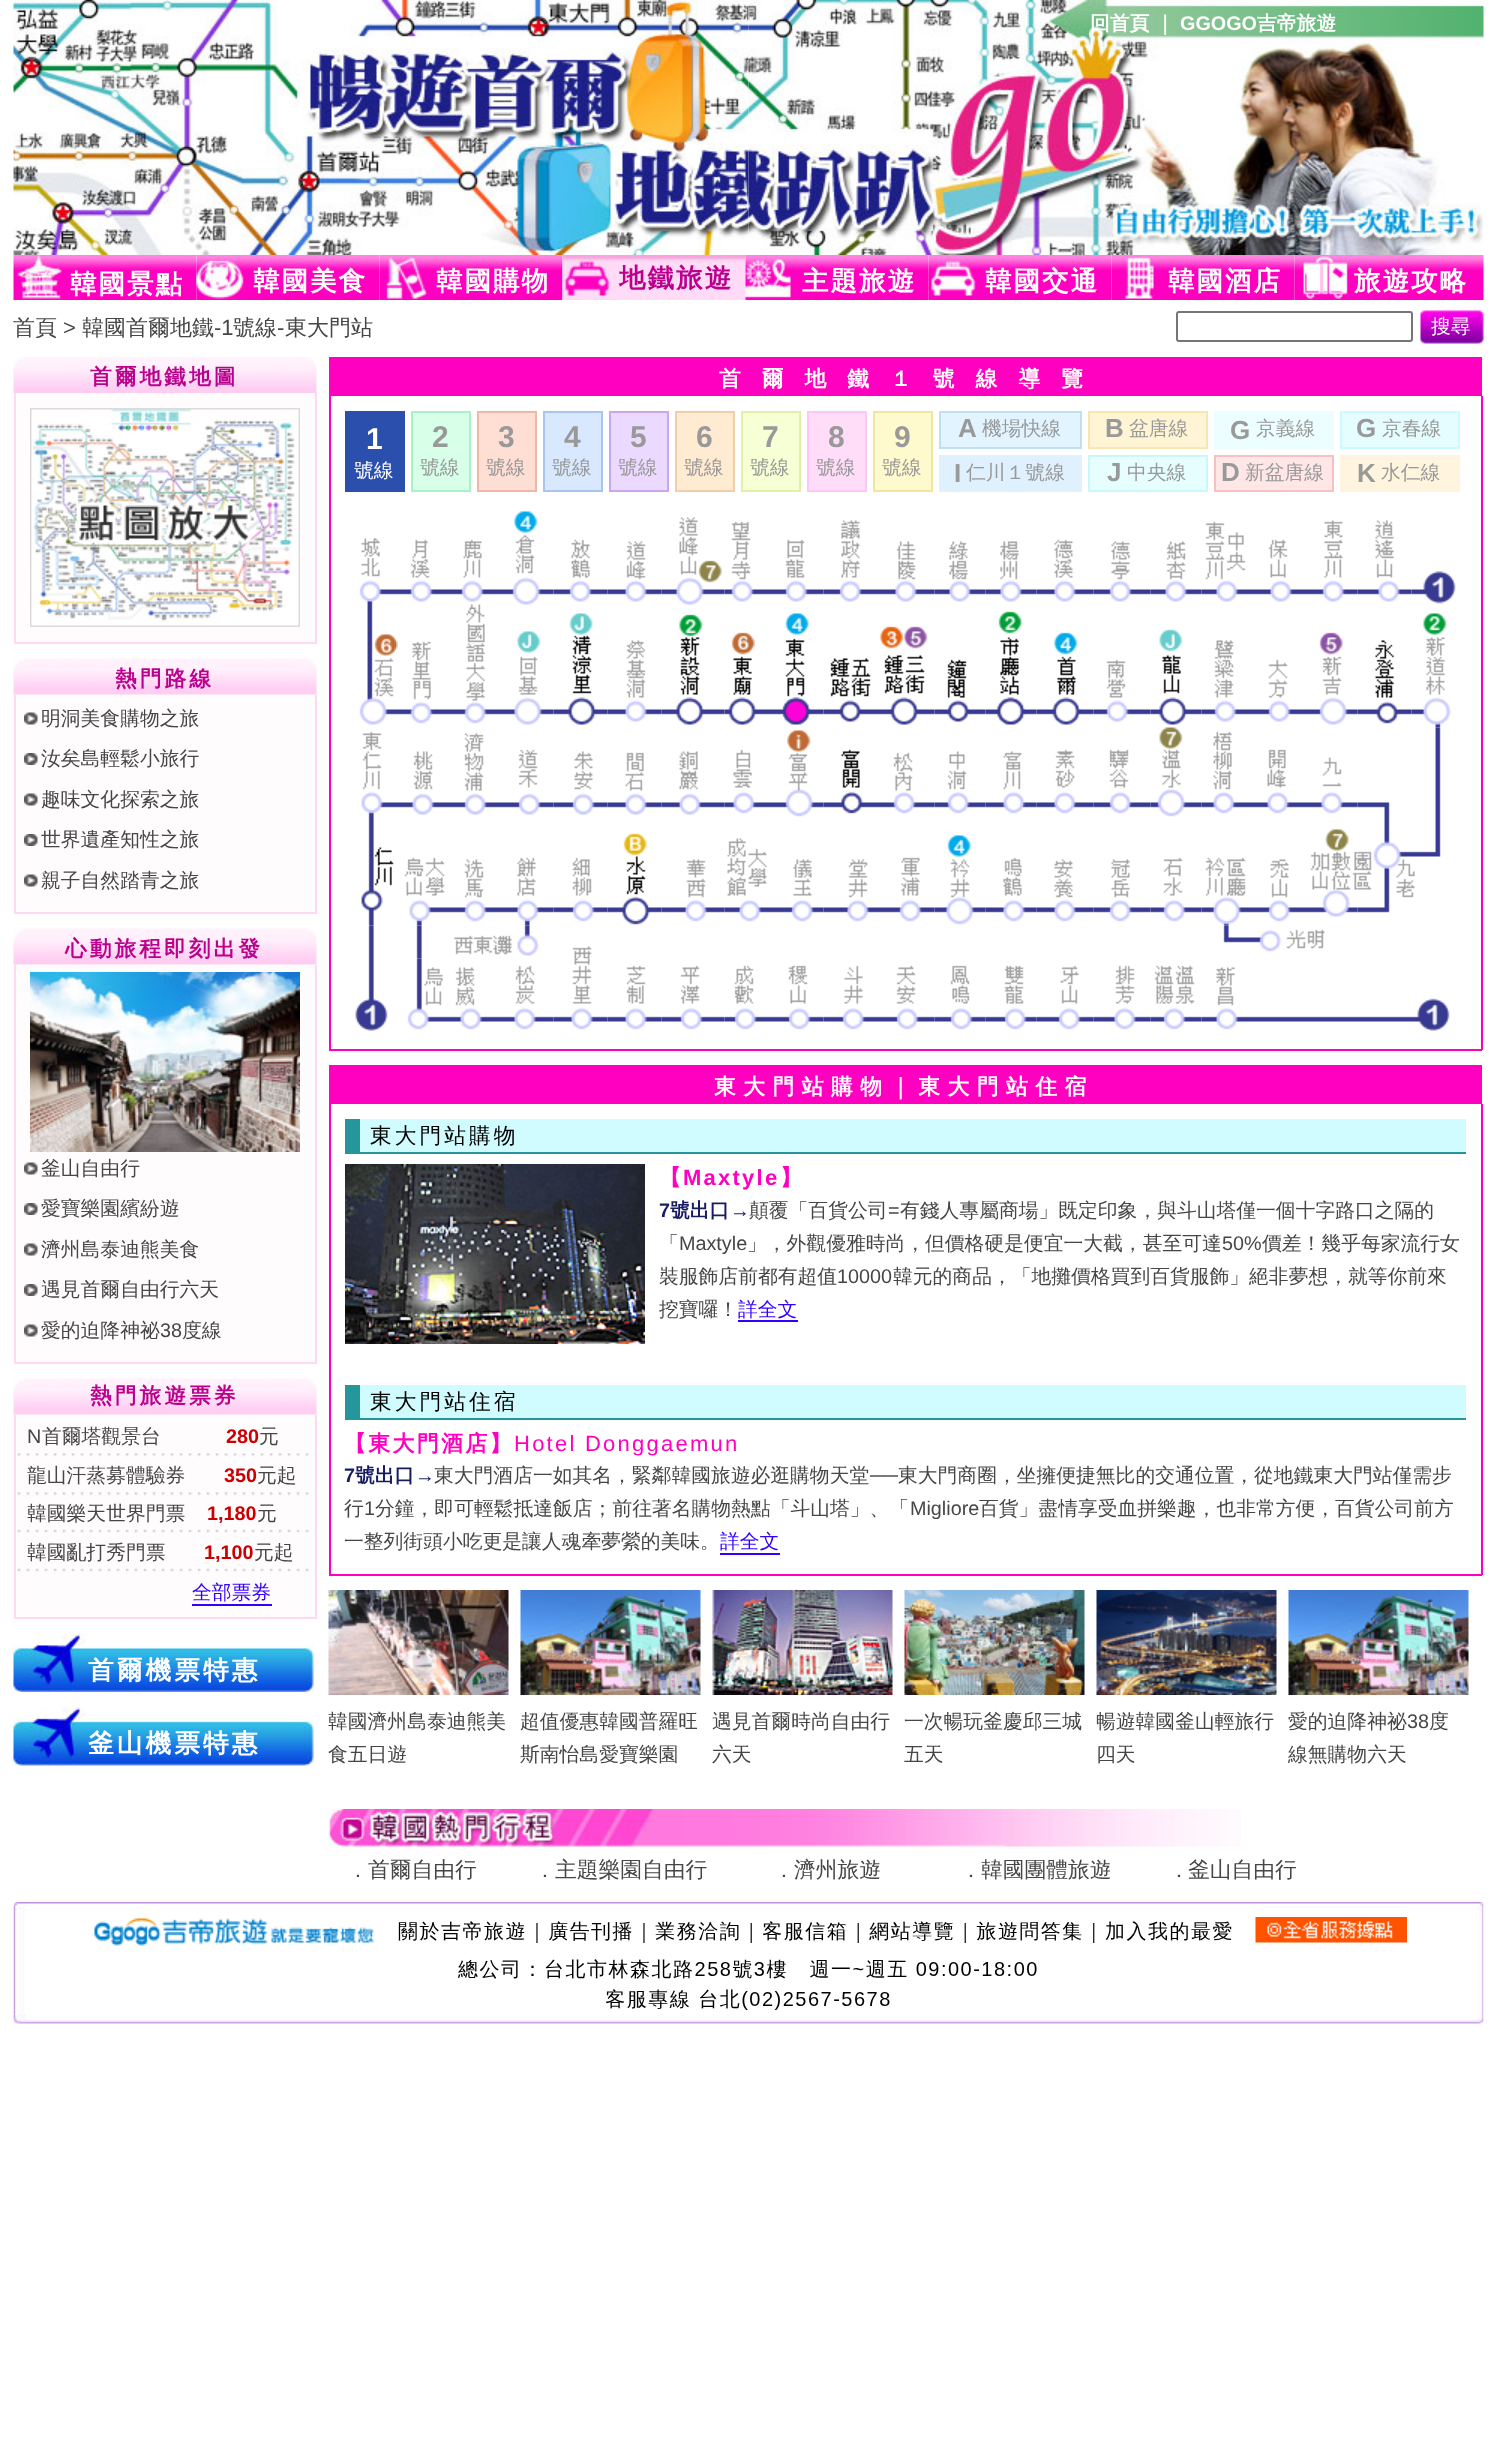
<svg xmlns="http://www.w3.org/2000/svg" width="1495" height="2448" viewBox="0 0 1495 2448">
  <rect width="100%" height="100%" fill="rgb(255,255,255)"/>
  <image x="13" y="0" width="736" height="255" href="pic1.png"/>
  <image x="748" y="0" width="736" height="255" href="pic2.png"/>
  <g font-family="WenQuanYi Zen Hei" font-size="19.8" font-weight="bold" fill="rgb(255,255,255)">
    <text x="1090" y="30">回首頁</text>
    <text x="1155" y="30">｜</text>
  </g>
  <text x="1180" y="30" font-family="Liberation Sans" font-size="19.8" font-weight="bold" fill="rgb(255,255,255)">GGOGO</text>
  <text x="1257" y="30" font-family="WenQuanYi Zen Hei" font-size="19.8" font-weight="bold" fill="rgb(255,255,255)">吉帝旅遊</text>
  <image x="13" y="255" width="184" height="45" href="pic3.png"/>
  <text x="70" y="293" font-family="WenQuanYi Zen Hei" font-size="26.5" font-weight="bold" letter-spacing="2" fill="rgb(255,255,255)">韓國景點</text>
  <image x="196" y="255" width="184" height="45" href="pic4.png"/>
  <text x="253" y="290" font-family="WenQuanYi Zen Hei" font-size="26.5" font-weight="bold" letter-spacing="2" fill="rgb(255,255,255)">韓國美食</text>
  <image x="379" y="255" width="184" height="45" href="pic5.png"/>
  <text x="436" y="290" font-family="WenQuanYi Zen Hei" font-size="26.5" font-weight="bold" letter-spacing="2" fill="rgb(255,255,255)">韓國購物</text>
  <image x="562" y="255" width="184" height="45" href="pic6.png"/>
  <text x="619" y="287" font-family="WenQuanYi Zen Hei" font-size="26.5" font-weight="bold" letter-spacing="2" fill="rgb(187,0,141)">地鐵旅遊</text>
  <image x="745" y="255" width="184" height="45" href="pic7.png"/>
  <text x="802" y="290" font-family="WenQuanYi Zen Hei" font-size="26.5" font-weight="bold" letter-spacing="2" fill="rgb(255,255,255)">主題旅遊</text>
  <image x="928" y="255" width="184" height="45" href="pic8.png"/>
  <text x="985" y="290" font-family="WenQuanYi Zen Hei" font-size="26.5" font-weight="bold" letter-spacing="2" fill="rgb(255,255,255)">韓國交通</text>
  <image x="1111" y="255" width="184" height="45" href="pic9.png"/>
  <text x="1168" y="290" font-family="WenQuanYi Zen Hei" font-size="26.5" font-weight="bold" letter-spacing="2" fill="rgb(255,255,255)">韓國酒店</text>
  <image x="1294" y="255" width="190" height="45" href="pic10.png"/>
  <text x="1354" y="290" font-family="WenQuanYi Zen Hei" font-size="26.5" font-weight="bold" letter-spacing="2" fill="rgb(255,255,255)">旅遊攻略</text>
  <text x="13" y="335" font-family="WenQuanYi Zen Hei" font-size="22" font-weight="500" fill="rgb(70,70,70)">首頁</text>
  <text x="63" y="335" font-family="Liberation Sans" font-size="22" fill="rgb(70,70,70)">&gt;</text>
  <text x="82" y="335" font-family="WenQuanYi Zen Hei" font-size="22" font-weight="500" fill="rgb(70,70,70)">韓國首爾地鐵</text>
  <text x="214" y="335" font-family="Liberation Sans" font-size="22" fill="rgb(70,70,70)">-1</text>
  <text x="233" y="335" font-family="WenQuanYi Zen Hei" font-size="22" font-weight="500" fill="rgb(70,70,70)">號線</text>
  <text x="277" y="335" font-family="Liberation Sans" font-size="22" fill="rgb(70,70,70)">-</text>
  <text x="285" y="335" font-family="WenQuanYi Zen Hei" font-size="22" font-weight="500" fill="rgb(70,70,70)">東大門站</text>
  <rect x="1177" y="312" width="235" height="29" rx="2" fill="none" stroke="rgb(118,118,118)" stroke-width="2"/>
  <image x="1420" y="310" width="64" height="34" href="pic11.png"/>
  <text x="1431" y="333" font-family="WenQuanYi Zen Hei" font-size="19.8" font-weight="500" fill="rgb(255,255,255)">搜尋</text>
  <image x="13" y="357" width="304" height="36" href="pic12.png"/>
  <text x="90" y="384" font-family="WenQuanYi Zen Hei" font-size="21.75" font-weight="bold" letter-spacing="3" fill="rgb(187,0,141)">首爾地鐵地圖</text>
  <rect x="16" y="393" width="299" height="249" fill="rgb(255,252,254)"/>
  <rect x="315" y="393" width="2" height="251" fill="rgb(255,216,244)"/>
  <rect x="14" y="642" width="303" height="2" fill="rgb(255,216,244)"/>
  <rect x="14" y="393" width="2" height="251" fill="rgb(255,216,244)"/>
  <image x="30" y="408" width="270" height="219" href="pic13.png"/>
  <image x="13" y="658" width="304" height="37" href="pic14.png"/>
  <text x="115" y="686" font-family="WenQuanYi Zen Hei" font-size="21.75" font-weight="bold" letter-spacing="3" fill="rgb(187,0,141)">熱門路線</text>
  <rect x="16" y="695" width="299" height="217" fill="rgb(255,252,254)"/>
  <rect x="315" y="695" width="2" height="219" fill="rgb(255,216,244)"/>
  <rect x="14" y="912" width="303" height="2" fill="rgb(255,216,244)"/>
  <rect x="14" y="695" width="2" height="219" fill="rgb(255,216,244)"/>
  <image x="24" y="712" width="14" height="13" href="pic15.png"/>
  <text x="41" y="725" font-family="WenQuanYi Zen Hei" font-size="19.8" font-weight="500" fill="rgb(70,70,70)">明洞美食購物之旅</text>
  <image x="24" y="753" width="14" height="12" href="pic16.png"/>
  <text x="41" y="765" font-family="WenQuanYi Zen Hei" font-size="19.8" font-weight="500" fill="rgb(70,70,70)">汝矣島輕鬆小旅行</text>
  <image x="24" y="793" width="14" height="13" href="pic15.png"/>
  <text x="41" y="806" font-family="WenQuanYi Zen Hei" font-size="19.8" font-weight="500" fill="rgb(70,70,70)">趣味文化探索之旅</text>
  <image x="24" y="834" width="14" height="12" href="pic16.png"/>
  <text x="41" y="846" font-family="WenQuanYi Zen Hei" font-size="19.8" font-weight="500" fill="rgb(70,70,70)">世界遺產知性之旅</text>
  <image x="24" y="874" width="14" height="13" href="pic15.png"/>
  <text x="41" y="887" font-family="WenQuanYi Zen Hei" font-size="19.8" font-weight="500" fill="rgb(70,70,70)">親子自然踏青之旅</text>
  <image x="13" y="928" width="304" height="37" href="pic14.png"/>
  <text x="65" y="956" font-family="WenQuanYi Zen Hei" font-size="21.75" font-weight="bold" letter-spacing="3" fill="rgb(187,0,141)">心動旅程即刻出發</text>
  <rect x="16" y="965" width="299" height="397" fill="rgb(255,252,254)"/>
  <rect x="315" y="965" width="2" height="399" fill="rgb(255,216,244)"/>
  <rect x="14" y="1362" width="303" height="2" fill="rgb(255,216,244)"/>
  <rect x="14" y="965" width="2" height="399" fill="rgb(255,216,244)"/>
  <image x="30" y="972" width="270" height="180" href="pic17.png"/>
  <image x="24" y="1162" width="14" height="13" href="pic15.png"/>
  <text x="41" y="1175" font-family="WenQuanYi Zen Hei" font-size="19.8" font-weight="500" fill="rgb(70,70,70)">釜山自由行</text>
  <image x="24" y="1203" width="14" height="12" href="pic16.png"/>
  <text x="41" y="1215" font-family="WenQuanYi Zen Hei" font-size="19.8" font-weight="500" fill="rgb(70,70,70)">愛寶樂園繽紛遊</text>
  <image x="24" y="1243" width="14" height="13" href="pic15.png"/>
  <text x="41" y="1256" font-family="WenQuanYi Zen Hei" font-size="19.8" font-weight="500" fill="rgb(70,70,70)">濟州島泰迪熊美食</text>
  <image x="24" y="1284" width="14" height="12" href="pic16.png"/>
  <text x="41" y="1296" font-family="WenQuanYi Zen Hei" font-size="19.8" font-weight="500" fill="rgb(70,70,70)">遇見首爾自由行六天</text>
  <image x="24" y="1324" width="14" height="13" href="pic15.png"/>
  <text x="41" y="1337" font-family="WenQuanYi Zen Hei" font-size="19.8" font-weight="500" fill="rgb(70,70,70)">愛的迫降神祕</text>
  <text x="160" y="1337" font-family="Liberation Sans" font-size="19.8" fill="rgb(70,70,70)">38</text>
  <text x="182" y="1337" font-family="WenQuanYi Zen Hei" font-size="19.8" font-weight="500" fill="rgb(70,70,70)">度線</text>
  <image x="13" y="1378" width="304" height="37" href="pic14.png"/>
  <text x="90" y="1403" font-family="WenQuanYi Zen Hei" font-size="21.75" font-weight="bold" letter-spacing="3" fill="rgb(187,0,141)">熱門旅遊票券</text>
  <rect x="16" y="1415" width="299" height="202" fill="rgb(255,252,254)"/>
  <rect x="315" y="1415" width="2" height="204" fill="rgb(255,216,244)"/>
  <rect x="14" y="1617" width="303" height="2" fill="rgb(255,216,244)"/>
  <rect x="14" y="1415" width="2" height="204" fill="rgb(255,216,244)"/>
  <text x="27" y="1443" font-family="Liberation Sans" font-size="19.8" fill="rgb(70,70,70)">N</text>
  <text x="42" y="1443" font-family="WenQuanYi Zen Hei" font-size="19.8" font-weight="500" fill="rgb(70,70,70)">首爾塔觀景台</text>
  <text x="226" y="1443" font-family="Liberation Sans" font-size="19.8" font-weight="bold" fill="rgb(204,0,0)">280</text>
  <text x="259" y="1443" font-family="WenQuanYi Zen Hei" font-size="19.8" font-weight="500" fill="rgb(70,70,70)">元</text>
  <image x="17" y="1453" width="298" height="4" href="pic18.png"/>
  <text x="27" y="1482" font-family="WenQuanYi Zen Hei" font-size="19.8" font-weight="500" fill="rgb(70,70,70)">龍山汗蒸募體驗券</text>
  <text x="224" y="1482" font-family="Liberation Sans" font-size="19.8" font-weight="bold" fill="rgb(204,0,0)">350</text>
  <text x="257" y="1482" font-family="WenQuanYi Zen Hei" font-size="19.8" font-weight="500" fill="rgb(70,70,70)">元起</text>
  <image x="17" y="1492" width="298" height="4" href="pic19.png"/>
  <text x="27" y="1520" font-family="WenQuanYi Zen Hei" font-size="19.8" font-weight="500" fill="rgb(70,70,70)">韓國樂天世界門票</text>
  <text x="207" y="1520" font-family="Liberation Sans" font-size="19.8" font-weight="bold" fill="rgb(204,0,0)">1,180</text>
  <text x="257" y="1520" font-family="WenQuanYi Zen Hei" font-size="19.8" font-weight="500" fill="rgb(70,70,70)">元</text>
  <image x="17" y="1529" width="298" height="4" href="pic20.png"/>
  <text x="27" y="1559" font-family="WenQuanYi Zen Hei" font-size="19.8" font-weight="500" fill="rgb(70,70,70)">韓國亂打秀門票</text>
  <text x="204" y="1559" font-family="Liberation Sans" font-size="19.8" font-weight="bold" fill="rgb(204,0,0)">1,100</text>
  <text x="254" y="1559" font-family="WenQuanYi Zen Hei" font-size="19.8" font-weight="500" fill="rgb(70,70,70)">元起</text>
  <image x="17" y="1568" width="298" height="4" href="pic21.png"/>
  <text x="192" y="1599" font-family="WenQuanYi Zen Hei" font-size="19.8" font-weight="500" fill="rgb(51,0,255)">全部票券</text>
  <rect x="192" y="1604" width="80" height="2" fill="rgb(51,0,255)"/>
  <image x="13" y="1633" width="301" height="59" href="pic22.png"/>
  <text x="88" y="1679" font-family="WenQuanYi Zen Hei" font-size="25.75" font-weight="bold" letter-spacing="3" fill="rgb(255,255,255)">首爾機票特惠</text>
  <image x="13" y="1707" width="301" height="59" href="pic23.png"/>
  <text x="88" y="1752" font-family="WenQuanYi Zen Hei" font-size="25.75" font-weight="bold" letter-spacing="3" fill="rgb(255,255,255)">釜山機票特惠</text>
  <rect x="329" y="357" width="1153" height="39" fill="rgb(255,0,192)"/>
  <text x="719" y="386" word-spacing="-0.5" font-family="WenQuanYi Zen Hei" font-size="21.75" font-weight="bold" letter-spacing="7.5" fill="rgb(255,255,255)">首 爾 地 鐵 １ 號 線 導 覽</text>
  <rect x="1481" y="396" width="2" height="654" fill="rgb(255,0,192)"/>
  <rect x="329" y="1049" width="1153" height="2" fill="rgb(255,0,192)"/>
  <rect x="329" y="396" width="2" height="654" fill="rgb(255,0,192)"/>
  <rect x="345" y="411" width="60" height="81" fill="rgb(43,79,173)"/>
  <text x="366" y="449" font-family="Liberation Sans" font-size="30" font-weight="bold" fill="rgb(255,255,255)">1</text>
  <text x="354" y="477" font-family="WenQuanYi Zen Hei" font-size="19.8" font-weight="500" fill="rgb(255,255,255)">號線</text>
  <rect x="412" y="412" width="58" height="79" fill="rgb(216,255,232)" stroke="rgb(169,242,199)" stroke-width="2"/>
  <text x="432" y="447" font-family="Liberation Sans" font-size="30" font-weight="bold" fill="rgb(153,153,153)">2</text>
  <text x="420" y="474" font-family="WenQuanYi Zen Hei" font-size="19.8" font-weight="500" fill="rgb(153,153,153)">號線</text>
  <rect x="478" y="412" width="58" height="79" fill="rgb(255,222,212)" stroke="rgb(240,183,166)" stroke-width="2"/>
  <text x="498" y="447" font-family="Liberation Sans" font-size="30" font-weight="bold" fill="rgb(153,153,153)">3</text>
  <text x="486" y="474" font-family="WenQuanYi Zen Hei" font-size="19.8" font-weight="500" fill="rgb(153,153,153)">號線</text>
  <rect x="544" y="412" width="58" height="79" fill="rgb(216,232,255)" stroke="rgb(167,197,240)" stroke-width="2"/>
  <text x="564" y="447" font-family="Liberation Sans" font-size="30" font-weight="bold" fill="rgb(153,153,153)">4</text>
  <text x="552" y="474" font-family="WenQuanYi Zen Hei" font-size="19.8" font-weight="500" fill="rgb(153,153,153)">號線</text>
  <rect x="610" y="412" width="58" height="79" fill="rgb(236,217,255)" stroke="rgb(202,166,239)" stroke-width="2"/>
  <text x="630" y="447" font-family="Liberation Sans" font-size="30" font-weight="bold" fill="rgb(153,153,153)">5</text>
  <text x="618" y="474" font-family="WenQuanYi Zen Hei" font-size="19.8" font-weight="500" fill="rgb(153,153,153)">號線</text>
  <rect x="676" y="412" width="58" height="79" fill="rgb(255,234,210)" stroke="rgb(240,207,168)" stroke-width="2"/>
  <text x="696" y="447" font-family="Liberation Sans" font-size="30" font-weight="bold" fill="rgb(153,153,153)">6</text>
  <text x="684" y="474" font-family="WenQuanYi Zen Hei" font-size="19.8" font-weight="500" fill="rgb(153,153,153)">號線</text>
  <rect x="742" y="412" width="58" height="79" fill="rgb(247,255,213)" stroke="rgb(227,240,168)" stroke-width="2"/>
  <text x="762" y="447" font-family="Liberation Sans" font-size="30" font-weight="bold" fill="rgb(153,153,153)">7</text>
  <text x="750" y="474" font-family="WenQuanYi Zen Hei" font-size="19.8" font-weight="500" fill="rgb(153,153,153)">號線</text>
  <rect x="808" y="412" width="58" height="79" fill="rgb(255,220,248)" stroke="rgb(255,197,244)" stroke-width="2"/>
  <text x="828" y="447" font-family="Liberation Sans" font-size="30" font-weight="bold" fill="rgb(153,153,153)">8</text>
  <text x="816" y="474" font-family="WenQuanYi Zen Hei" font-size="19.8" font-weight="500" fill="rgb(153,153,153)">號線</text>
  <rect x="874" y="412" width="58" height="79" fill="rgb(255,249,206)" stroke="rgb(240,230,162)" stroke-width="2"/>
  <text x="894" y="447" font-family="Liberation Sans" font-size="30" font-weight="bold" fill="rgb(153,153,153)">9</text>
  <text x="882" y="474" font-family="WenQuanYi Zen Hei" font-size="19.8" font-weight="500" fill="rgb(153,153,153)">號線</text>
  <rect x="940" y="412" width="141" height="36" fill="rgb(225,244,255)" stroke="rgb(191,223,242)" stroke-width="2"/>
  <text x="958" y="437" font-family="Liberation Sans" font-size="26" font-weight="bold" fill="rgb(153,153,153)">A</text>
  <text x="982" y="435" font-family="WenQuanYi Zen Hei" font-size="19.8" font-weight="500" fill="rgb(153,153,153)">機場快線</text>
  <rect x="1089" y="412" width="118" height="36" fill="rgb(255,245,212)" stroke="rgb(247,230,175)" stroke-width="2"/>
  <text x="1105" y="437" font-family="Liberation Sans" font-size="26" font-weight="bold" fill="rgb(153,153,153)">B</text>
  <text x="1129" y="435" font-family="WenQuanYi Zen Hei" font-size="19.8" font-weight="500" fill="rgb(153,153,153)">盆唐線</text>
  <rect x="1214" y="411" width="120" height="38" fill="rgb(236,254,255)"/>
  <text x="1230" y="439" font-family="Liberation Sans" font-size="26" font-weight="bold" fill="rgb(153,153,153)">G</text>
  <text x="1256" y="435" font-family="WenQuanYi Zen Hei" font-size="19.8" font-weight="500" fill="rgb(153,153,153)">京義線</text>
  <rect x="1341" y="412" width="118" height="36" fill="rgb(229,253,255)" stroke="rgb(205,250,253)" stroke-width="2"/>
  <text x="1356" y="437" font-family="Liberation Sans" font-size="26" font-weight="bold" fill="rgb(153,153,153)">G</text>
  <text x="1382" y="435" font-family="WenQuanYi Zen Hei" font-size="19.8" font-weight="500" fill="rgb(153,153,153)">京春線</text>
  <rect x="939" y="455" width="143" height="37" fill="rgb(223,240,255)"/>
  <text x="954" y="482" font-family="Liberation Sans" font-size="26" font-weight="bold" fill="rgb(153,153,153)">I</text>
  <text x="966" y="479" font-family="WenQuanYi Zen Hei" font-size="19.8" font-weight="500" fill="rgb(153,153,153)">仁川１號線</text>
  <rect x="1089" y="456" width="118" height="35" fill="rgb(231,254,255)" stroke="rgb(202,247,249)" stroke-width="2"/>
  <text x="1107" y="481" font-family="Liberation Sans" font-size="26" font-weight="bold" fill="rgb(153,153,153)">J</text>
  <text x="1127" y="479" font-family="WenQuanYi Zen Hei" font-size="19.8" font-weight="500" fill="rgb(153,153,153)">中央線</text>
  <rect x="1215" y="456" width="118" height="35" fill="rgb(255,231,231)" stroke="rgb(250,192,193)" stroke-width="2"/>
  <text x="1221" y="481" font-family="Liberation Sans" font-size="26" font-weight="bold" fill="rgb(153,153,153)">D</text>
  <text x="1245" y="479" font-family="WenQuanYi Zen Hei" font-size="19.8" font-weight="500" fill="rgb(153,153,153)">新盆唐線</text>
  <rect x="1340" y="455" width="120" height="37" fill="rgb(255,244,221)"/>
  <text x="1357" y="482" font-family="Liberation Sans" font-size="26" font-weight="bold" fill="rgb(153,153,153)">K</text>
  <text x="1381" y="479" font-family="WenQuanYi Zen Hei" font-size="19.8" font-weight="500" fill="rgb(153,153,153)">水仁線</text>
  <image x="359" y="538" width="37" height="71" href="pic24.png"/>
  <image x="396" y="539" width="51" height="63" href="pic25.png"/>
  <image x="447" y="539" width="51" height="70" href="pic26.png"/>
  <image x="498" y="511" width="56" height="94" href="pic27.png"/>
  <image x="553" y="539" width="55" height="63" href="pic28.png"/>
  <image x="607" y="541" width="55" height="61" href="pic29.png"/>
  <image x="661" y="517" width="64" height="88" href="pic30.png"/>
  <image x="724" y="521" width="44" height="81" href="pic31.png"/>
  <image x="768" y="539" width="56" height="63" href="pic32.png"/>
  <image x="823" y="520" width="56" height="82" href="pic33.png"/>
  <image x="879" y="541" width="56" height="61" href="pic34.png"/>
  <image x="934" y="541" width="52" height="61" href="pic35.png"/>
  <image x="985" y="541" width="52" height="61" href="pic36.png"/>
  <image x="1036" y="539" width="58" height="63" href="pic37.png"/>
  <image x="1093" y="541" width="58" height="61" href="pic38.png"/>
  <image x="1150" y="541" width="52" height="61" href="pic39.png"/>
  <image x="1201" y="521" width="50" height="81" href="pic40.png"/>
  <image x="1251" y="539" width="54" height="63" href="pic41.png"/>
  <image x="1305" y="520" width="53" height="82" href="pic42.png"/>
  <image x="1357" y="520" width="55" height="82" href="pic43.png"/>
  <image x="1411" y="571" width="45" height="33" href="pic44.png"/>
  <image x="359" y="609" width="37" height="116" href="pic45.png"/>
  <image x="396" y="639" width="51" height="85" href="pic46.png"/>
  <image x="447" y="609" width="51" height="115" href="pic47.png"/>
  <image x="498" y="631" width="56" height="94" href="pic48.png"/>
  <image x="553" y="613" width="55" height="112" href="pic49.png"/>
  <image x="607" y="640" width="55" height="82" href="pic50.png"/>
  <image x="661" y="614" width="64" height="111" href="pic51.png"/>
  <image x="724" y="632" width="44" height="93" href="pic52.png"/>
  <image x="768" y="613" width="56" height="112" href="pic53.png"/>
  <image x="823" y="658" width="56" height="64" href="pic54.png"/>
  <image x="879" y="626" width="56" height="99" href="pic55.png"/>
  <image x="934" y="659" width="52" height="63" href="pic56.png"/>
  <image x="985" y="611" width="52" height="114" href="pic57.png"/>
  <image x="1036" y="632" width="58" height="93" href="pic58.png"/>
  <image x="1093" y="659" width="58" height="63" href="pic59.png"/>
  <image x="1150" y="629" width="52" height="96" href="pic60.png"/>
  <image x="1201" y="640" width="50" height="82" href="pic61.png"/>
  <image x="1251" y="659" width="54" height="63" href="pic62.png"/>
  <image x="1305" y="632" width="53" height="93" href="pic63.png"/>
  <image x="1357" y="640" width="55" height="84" href="pic64.png"/>
  <image x="1411" y="613" width="40" height="115" href="pic65.png"/>
  <image x="361" y="731" width="35" height="97" href="pic66.png"/>
  <image x="396" y="751" width="51" height="64" href="pic67.png"/>
  <image x="447" y="733" width="51" height="82" href="pic68.png"/>
  <image x="498" y="749" width="56" height="66" href="pic69.png"/>
  <image x="553" y="751" width="55" height="64" href="pic70.png"/>
  <image x="607" y="752" width="55" height="63" href="pic71.png"/>
  <image x="661" y="751" width="64" height="64" href="pic72.png"/>
  <image x="724" y="749" width="44" height="65" href="pic73.png"/>
  <image x="768" y="730" width="56" height="87" href="pic74.png"/>
  <image x="823" y="749" width="56" height="65" href="pic75.png"/>
  <image x="879" y="752" width="56" height="62" href="pic76.png"/>
  <image x="934" y="751" width="52" height="63" href="pic77.png"/>
  <image x="985" y="751" width="52" height="63" href="pic78.png"/>
  <image x="1036" y="749" width="58" height="65" href="pic79.png"/>
  <image x="1093" y="749" width="58" height="65" href="pic80.png"/>
  <image x="1150" y="727" width="52" height="90" href="pic81.png"/>
  <image x="1201" y="731" width="50" height="83" href="pic82.png"/>
  <image x="1251" y="749" width="54" height="65" href="pic83.png"/>
  <image x="1305" y="757" width="53" height="57" href="pic84.png"/>
  <image x="1357" y="802" width="33" height="26" href="pic85.png"/>
  <image x="1435" y="727" width="6" height="101" href="pic86.png"/>
  <image x="361" y="828" width="33" height="98" href="pic87.png"/>
  <image x="404" y="857" width="43" height="69" href="pic88.png"/>
  <image x="447" y="859" width="51" height="63" href="pic89.png"/>
  <image x="498" y="857" width="56" height="69" href="pic90.png"/>
  <image x="553" y="857" width="55" height="65" href="pic91.png"/>
  <image x="607" y="833" width="55" height="92" href="pic92.png"/>
  <image x="661" y="859" width="64" height="63" href="pic93.png"/>
  <image x="724" y="838" width="44" height="84" href="pic94.png"/>
  <image x="768" y="859" width="56" height="63" href="pic95.png"/>
  <image x="823" y="859" width="56" height="63" href="pic96.png"/>
  <image x="879" y="857" width="56" height="65" href="pic97.png"/>
  <image x="934" y="835" width="52" height="90" href="pic98.png"/>
  <image x="985" y="857" width="52" height="65" href="pic99.png"/>
  <image x="1036" y="859" width="58" height="63" href="pic100.png"/>
  <image x="1093" y="859" width="58" height="63" href="pic101.png"/>
  <image x="1150" y="857" width="52" height="65" href="pic102.png"/>
  <image x="1201" y="857" width="50" height="69" href="pic103.png"/>
  <image x="1251" y="859" width="54" height="63" href="pic104.png"/>
  <image x="1305" y="829" width="53" height="88" href="pic105.png"/>
  <image x="1357" y="828" width="84" height="85" href="pic106.png"/>
  <image x="355" y="925" width="33" height="106" href="pic107.png"/>
  <image x="416" y="925" width="6" height="34" href="pic108.png"/>
  <image x="454" y="925" width="85" height="31" href="pic109.png"/>
  <image x="572" y="946" width="20" height="13" href="pic110.png"/>
  <image x="1223" y="925" width="102" height="27" href="pic111.png"/>
  <image x="407" y="958" width="40" height="72" href="pic112.png"/>
  <image x="447" y="967" width="51" height="63" href="pic113.png"/>
  <image x="498" y="965" width="56" height="65" href="pic114.png"/>
  <image x="553" y="958" width="55" height="72" href="pic115.png"/>
  <image x="607" y="965" width="55" height="65" href="pic116.png"/>
  <image x="661" y="965" width="64" height="65" href="pic117.png"/>
  <image x="724" y="965" width="44" height="65" href="pic118.png"/>
  <image x="768" y="965" width="56" height="65" href="pic119.png"/>
  <image x="823" y="965" width="56" height="65" href="pic120.png"/>
  <image x="879" y="965" width="56" height="65" href="pic121.png"/>
  <image x="934" y="965" width="52" height="65" href="pic122.png"/>
  <image x="985" y="965" width="52" height="65" href="pic123.png"/>
  <image x="1036" y="965" width="58" height="65" href="pic124.png"/>
  <image x="1093" y="965" width="58" height="65" href="pic125.png"/>
  <image x="1150" y="965" width="52" height="65" href="pic126.png"/>
  <image x="1201" y="967" width="50" height="63" href="pic127.png"/>
  <image x="1251" y="998" width="199" height="33" href="pic128.png"/>
  <rect x="329" y="1065" width="1153" height="39" fill="rgb(255,0,192)"/>
  <text x="714" y="1094" font-family="WenQuanYi Zen Hei" font-size="21.75" font-weight="bold" letter-spacing="7.5" fill="rgb(255,255,255)">東大門站購物｜東大門站住宿</text>
  <rect x="1481" y="1104" width="2" height="471" fill="rgb(255,0,192)"/>
  <rect x="329" y="1574" width="1153" height="2" fill="rgb(255,0,192)"/>
  <rect x="329" y="1104" width="2" height="471" fill="rgb(255,0,192)"/>
  <rect x="360" y="1119" width="1106" height="33" fill="rgb(209,252,255)"/>
  <rect x="360" y="1152" width="1106" height="2" fill="rgb(38,150,157)"/>
  <rect x="345" y="1119" width="15" height="35" fill="rgb(38,150,157)"/>
  <text x="370" y="1143" font-family="WenQuanYi Zen Hei" font-size="21.75" font-weight="500" letter-spacing="3" fill="rgb(0,0,0)">東大門站購物</text>
  <image x="345" y="1164" width="300" height="180" href="pic129.png"/>
  <text x="659" y="1185" font-family="WenQuanYi Zen Hei" font-size="22" font-weight="bold" letter-spacing="2.25" fill="rgb(255,0,192)">【</text>
  <text x="683" y="1185" font-family="Liberation Sans" font-size="22" font-weight="bold" letter-spacing="2.25" fill="rgb(255,0,192)">Maxtyle</text>
  <text x="780" y="1185" font-family="WenQuanYi Zen Hei" font-size="22" font-weight="bold" letter-spacing="2.25" fill="rgb(255,0,192)">】</text>
  <text x="659" y="1217" font-family="Liberation Sans" font-size="19.8" font-weight="bold" fill="rgb(23,28,97)">7</text>
  <text x="670" y="1217" font-family="WenQuanYi Zen Hei" font-size="19.8" font-weight="bold" fill="rgb(23,28,97)">號出口</text>
  <text x="730" y="1217" font-family="Liberation Sans" font-size="19.8" fill="rgb(23,28,97)">→</text>
  <text x="749" y="1217" font-family="WenQuanYi Zen Hei" font-size="19.8" font-weight="500" fill="rgb(70,70,70)">顛覆「百貨公司</text>
  <text x="888" y="1217" font-family="Liberation Sans" font-size="19.8" fill="rgb(70,70,70)">=</text>
  <g font-family="WenQuanYi Zen Hei" font-size="19.8" font-weight="500" fill="rgb(70,70,70)">
    <text x="900" y="1217">有錢人專屬商場」既定印象，與斗山塔僅一個十字路口之隔的</text>
    <text x="659" y="1250">「</text>
  </g>
  <text x="679" y="1250" font-family="Liberation Sans" font-size="19.8" fill="rgb(70,70,70)">Maxtyle</text>
  <text x="747" y="1250" font-family="WenQuanYi Zen Hei" font-size="19.8" font-weight="500" fill="rgb(70,70,70)">」，外觀優雅時尚，但價格硬是便宜一大截，甚至可達</text>
  <text x="1222" y="1250" font-family="Liberation Sans" font-size="19.8" fill="rgb(70,70,70)">50%</text>
  <g font-family="WenQuanYi Zen Hei" font-size="19.8" font-weight="500" fill="rgb(70,70,70)">
    <text x="1262" y="1250">價差！幾乎每家流行女</text>
    <text x="659" y="1283">裝服飾店前都有超值</text>
  </g>
  <text x="837" y="1283" font-family="Liberation Sans" font-size="19.8" fill="rgb(70,70,70)">10000</text>
  <g font-family="WenQuanYi Zen Hei" font-size="19.8" font-weight="500" fill="rgb(70,70,70)">
    <text x="893" y="1283">韓元的商品，「地攤價格買到百貨服飾」絕非夢想，就等你前來</text>
    <text x="659" y="1316">挖寶囉！</text>
  </g>
  <text x="738" y="1316" font-family="WenQuanYi Zen Hei" font-size="19.8" font-weight="500" fill="rgb(51,0,255)">詳全文</text>
  <rect x="738" y="1320" width="60" height="2" fill="rgb(51,0,255)"/>
  <rect x="360" y="1385" width="1106" height="33" fill="rgb(209,252,255)"/>
  <rect x="345" y="1418" width="1121" height="2" fill="rgb(38,150,157)"/>
  <rect x="345" y="1385" width="15" height="33" fill="rgb(38,150,157)"/>
  <text x="370" y="1409" font-family="WenQuanYi Zen Hei" font-size="21.75" font-weight="500" letter-spacing="3" fill="rgb(0,0,0)">東大門站住宿</text>
  <text x="344" y="1451" font-family="WenQuanYi Zen Hei" font-size="22" font-weight="bold" letter-spacing="2.25" fill="rgb(255,0,192)">【東大門酒店】</text>
  <text x="514" y="1451" font-family="Liberation Sans" font-size="22" letter-spacing="2.25" fill="rgb(255,0,192)">Hotel Donggaemun</text>
  <text x="344" y="1482" font-family="Liberation Sans" font-size="19.8" font-weight="bold" fill="rgb(23,28,97)">7</text>
  <text x="355" y="1482" font-family="WenQuanYi Zen Hei" font-size="19.8" font-weight="bold" fill="rgb(23,28,97)">號出口</text>
  <text x="415" y="1482" font-family="Liberation Sans" font-size="19.8" fill="rgb(23,28,97)">→</text>
  <text x="434" y="1482" font-family="WenQuanYi Zen Hei" font-size="19.8" font-weight="500" fill="rgb(70,70,70)">東大門酒店一如其名，緊鄰韓國旅遊必逛購物天堂</text>
  <text x="870" y="1482" font-family="Liberation Sans" font-size="19.8" fill="rgb(70,70,70)">──</text>
  <g font-family="WenQuanYi Zen Hei" font-size="19.8" font-weight="500" fill="rgb(70,70,70)">
    <text x="898" y="1482">東大門商圈，坐擁便捷無比的交通位置，從地鐵東大門站僅需步</text>
    <text x="344" y="1515">行</text>
  </g>
  <text x="364" y="1515" font-family="Liberation Sans" font-size="19.8" fill="rgb(70,70,70)">1</text>
  <text x="375" y="1515" font-family="WenQuanYi Zen Hei" font-size="19.8" font-weight="500" fill="rgb(70,70,70)">分鐘，即可輕鬆抵達飯店；前往著名購物熱點「斗山塔」、「</text>
  <text x="910" y="1515" font-family="Liberation Sans" font-size="19.8" fill="rgb(70,70,70)">Migliore</text>
  <g font-family="WenQuanYi Zen Hei" font-size="19.8" font-weight="500" fill="rgb(70,70,70)">
    <text x="979" y="1515">百貨」盡情享受血拼樂趣，也非常方便，百貨公司前方</text>
    <text x="344" y="1548">一整列街頭小吃更是讓人魂牽夢縈的美味。</text>
  </g>
  <text x="720" y="1548" font-family="WenQuanYi Zen Hei" font-size="19.8" font-weight="500" fill="rgb(51,0,255)">詳全文</text>
  <rect x="720" y="1553" width="60" height="2" fill="rgb(51,0,255)"/>
  <image x="328" y="1590" width="181" height="105" href="pic130.png"/>
  <g font-family="WenQuanYi Zen Hei" font-size="19.8" font-weight="500" fill="rgb(70,70,70)">
    <text>
      <tspan x="328" y="1728">韓國濟州島泰迪熊美</tspan>
      <tspan x="328" y="1761">食五日遊</tspan>
    </text>
  </g>
  <image x="520" y="1590" width="181" height="105" href="pic131.png"/>
  <g font-family="WenQuanYi Zen Hei" font-size="19.8" font-weight="500" fill="rgb(70,70,70)">
    <text>
      <tspan x="520" y="1728">超值優惠韓國普羅旺</tspan>
      <tspan x="520" y="1761">斯南怡島愛寶樂園</tspan>
    </text>
  </g>
  <image x="712" y="1590" width="181" height="105" href="pic132.png"/>
  <g font-family="WenQuanYi Zen Hei" font-size="19.8" font-weight="500" fill="rgb(70,70,70)">
    <text>
      <tspan x="712" y="1728">遇見首爾時尚自由行</tspan>
      <tspan x="712" y="1761">六天</tspan>
    </text>
  </g>
  <image x="904" y="1590" width="181" height="105" href="pic133.png"/>
  <g font-family="WenQuanYi Zen Hei" font-size="19.8" font-weight="500" fill="rgb(70,70,70)">
    <text>
      <tspan x="904" y="1728">一次暢玩釜慶邱三城</tspan>
      <tspan x="904" y="1761">五天</tspan>
    </text>
  </g>
  <image x="1096" y="1590" width="181" height="105" href="pic134.png"/>
  <g font-family="WenQuanYi Zen Hei" font-size="19.8" font-weight="500" fill="rgb(70,70,70)">
    <text>
      <tspan x="1096" y="1728">暢遊韓國釜山輕旅行</tspan>
      <tspan x="1096" y="1761">四天</tspan>
    </text>
  </g>
  <image x="1288" y="1590" width="181" height="105" href="pic131.png"/>
  <text x="1288" y="1728" font-family="WenQuanYi Zen Hei" font-size="19.8" font-weight="500" fill="rgb(70,70,70)">愛的迫降神祕</text>
  <text x="1407" y="1728" font-family="Liberation Sans" font-size="19.8" fill="rgb(70,70,70)">38</text>
  <g font-family="WenQuanYi Zen Hei" font-size="19.8" font-weight="500" fill="rgb(70,70,70)">
    <text x="1429" y="1728">度</text>
    <text x="1288" y="1761">線無購物六天</text>
  </g>
  <image x="328" y="1809" width="913" height="38" href="pic135.png"/>
  <text x="348" y="1877" font-family="WenQuanYi Zen Hei" font-size="19.8" font-weight="500" fill="rgb(70,70,70)">．</text>
  <text x="368" y="1877" font-family="WenQuanYi Zen Hei" font-size="21.75" font-weight="500" fill="rgb(70,70,70)">首爾自由行</text>
  <text x="535" y="1877" font-family="WenQuanYi Zen Hei" font-size="19.8" font-weight="500" fill="rgb(70,70,70)">．</text>
  <text x="555" y="1877" font-family="WenQuanYi Zen Hei" font-size="21.75" font-weight="500" fill="rgb(70,70,70)">主題樂園自由行</text>
  <text x="774" y="1877" font-family="WenQuanYi Zen Hei" font-size="19.8" font-weight="500" fill="rgb(70,70,70)">．</text>
  <text x="794" y="1877" font-family="WenQuanYi Zen Hei" font-size="21.75" font-weight="500" fill="rgb(70,70,70)">濟州旅遊</text>
  <text x="961" y="1877" font-family="WenQuanYi Zen Hei" font-size="19.8" font-weight="500" fill="rgb(70,70,70)">．</text>
  <text x="981" y="1877" font-family="WenQuanYi Zen Hei" font-size="21.75" font-weight="500" fill="rgb(70,70,70)">韓國團體旅遊</text>
  <text x="1169" y="1877" font-family="WenQuanYi Zen Hei" font-size="19.8" font-weight="500" fill="rgb(70,70,70)">．</text>
  <text x="1188" y="1877" font-family="WenQuanYi Zen Hei" font-size="21.75" font-weight="500" fill="rgb(70,70,70)">釜山自由行</text>
  <image x="13" y="1902" width="1471" height="122" href="pic136.png"/>
</svg>
